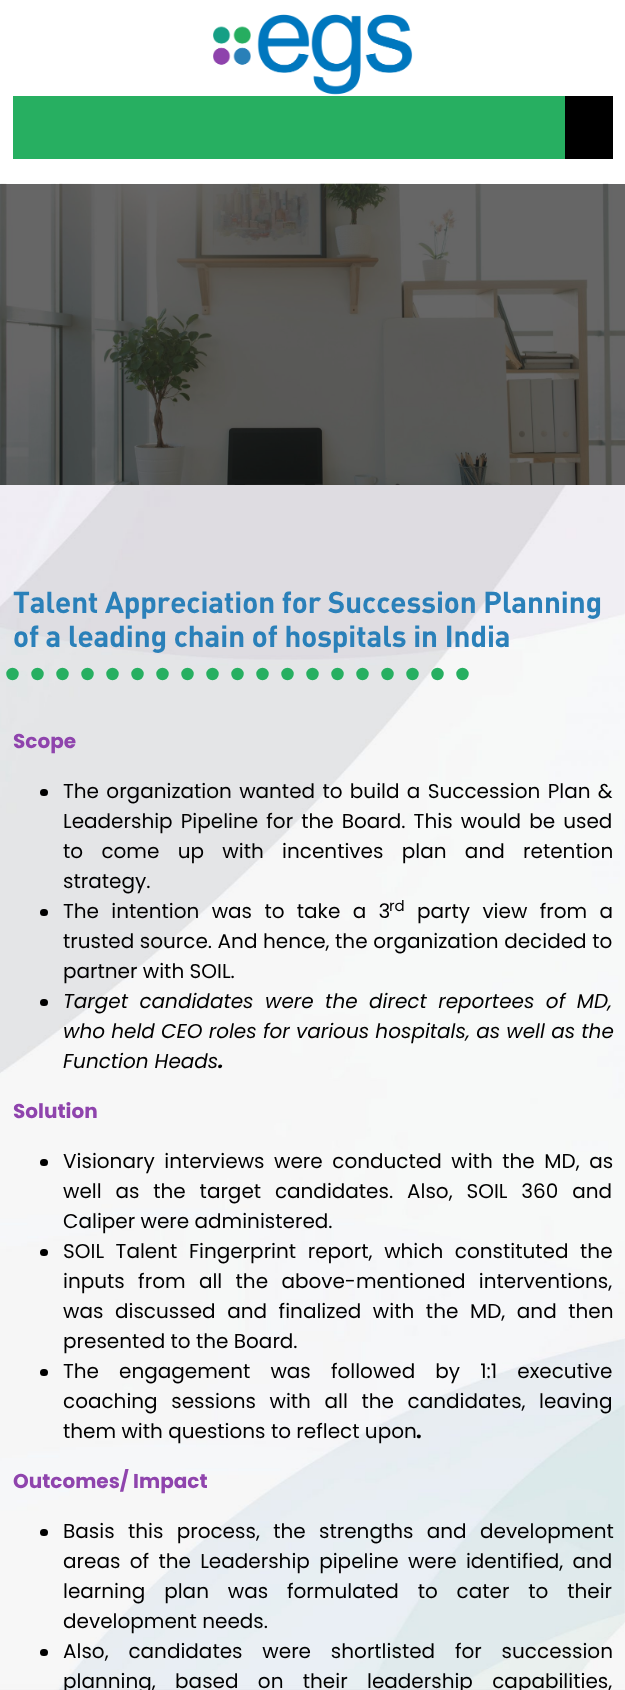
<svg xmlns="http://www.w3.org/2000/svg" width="625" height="1690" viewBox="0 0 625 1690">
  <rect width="100%" height="100%" fill="rgb(255,255,255)"/>
  <image x="0" y="485" width="625" height="1205" href="pic1.png"/>
  <image x="213" y="14" width="200" height="81" href="pic2.png"/>
  <rect x="13" y="96" width="552" height="63" fill="rgb(39,175,97)"/>
  <rect x="565" y="96" width="48" height="63" fill="rgb(0,0,0)"/>
  <image x="0" y="183" width="625" height="302" href="pic3.png"/>
  <g font-family="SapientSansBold" font-size="30" font-weight="bold" fill="rgb(42,128,185)">
    <text>
      <tspan x="13" y="613">Talent Appreciation for Succession Planning</tspan>
      <tspan x="13" y="647">of a leading chain of hospitals in India</tspan>
    </text>
  </g>
  <path d="M12.5 674H480" fill="none" stroke="rgb(39,175,97)" stroke-width="12.5" stroke-linecap="round" stroke-dasharray="0 25"/>
  <text x="13" y="748" font-family="Poppins" font-size="20" font-weight="bold" fill="rgb(143,68,173)">Scope</text>
  <rect x="40" y="789" width="8" height="7" rx="3.5" fill="rgb(0,0,0)"/>
  <g font-family="Poppins" font-size="20" fill="rgb(0,0,0)">
    <text>
      <tspan x="63" y="798" word-spacing="2">The organization wanted to build a Succession Plan &amp;</tspan>
      <tspan x="63" y="828" word-spacing="2.75">Leadership Pipeline for the Board. This would be used</tspan>
      <tspan x="63" y="858" word-spacing="13">to come up with incentives plan and retention</tspan>
      <tspan x="63" y="888">strategy.</tspan>
    </text>
  </g>
  <rect x="40" y="909" width="8" height="7" rx="3.5" fill="rgb(0,0,0)"/>
  <text x="63" y="918" word-spacing="7" font-family="Poppins" font-size="20" fill="rgb(0,0,0)">The intention was to take a 3</text>
  <text x="389" y="911" font-family="Poppins" font-size="15" fill="rgb(0,0,0)">rd</text>
  <g font-family="Poppins" font-size="20" fill="rgb(0,0,0)">
    <text x="417" y="918" word-spacing="7">party view from a</text>
    <text>
      <tspan x="63" y="948" word-spacing="0.25">trusted source. And hence, the organization decided to</tspan>
      <tspan x="63" y="978">partner with SOIL.</tspan>
    </text>
  </g>
  <rect x="40" y="999" width="8" height="7" rx="3.5" fill="rgb(0,0,0)"/>
  <g font-family="Poppins" font-size="20" font-style="italic" fill="rgb(0,0,0)">
    <text>
      <tspan x="63" y="1008" word-spacing="5.5">Target candidates were the direct reportees of MD,</tspan>
      <tspan x="63" y="1038" word-spacing="0.25">who held CEO roles for various hospitals, as well as the</tspan>
      <tspan x="63" y="1068">Function Heads</tspan>
    </text>
  </g>
  <text x="218" y="1068" font-family="Poppins" font-size="20" font-weight="bold" font-style="italic" fill="rgb(0,0,0)">.</text>
  <text x="13" y="1118" font-family="Poppins" font-size="20" font-weight="bold" fill="rgb(143,68,173)">Solution</text>
  <rect x="40" y="1159" width="8" height="7" rx="3.5" fill="rgb(0,0,0)"/>
  <g font-family="Poppins" font-size="20" fill="rgb(0,0,0)">
    <text>
      <tspan x="63" y="1168" word-spacing="4.25">Visionary interviews were conducted with the MD, as</tspan>
      <tspan x="63" y="1198" word-spacing="8.5">well as the target candidates. Also, SOIL 360 and</tspan>
      <tspan x="63" y="1228">Caliper were administered.</tspan>
    </text>
  </g>
  <rect x="40" y="1249" width="8" height="7" rx="3.5" fill="rgb(0,0,0)"/>
  <g font-family="Poppins" font-size="20" fill="rgb(0,0,0)">
    <text>
      <tspan x="63" y="1258" word-spacing="6.25">SOIL Talent Fingerprint report, which constituted the</tspan>
      <tspan x="63" y="1288" word-spacing="8">inputs from all the above-mentioned interventions,</tspan>
      <tspan x="63" y="1318" word-spacing="6.25">was discussed and finalized with the MD, and then</tspan>
      <tspan x="63" y="1348">presented to the Board.</tspan>
    </text>
  </g>
  <rect x="40" y="1369" width="8" height="7" rx="3.5" fill="rgb(0,0,0)"/>
  <g font-family="Poppins" font-size="20" fill="rgb(0,0,0)">
    <text>
      <tspan x="63" y="1378" word-spacing="14.75">The engagement was followed by 1:1 executive</tspan>
      <tspan x="63" y="1408" word-spacing="8.25">coaching sessions with all the candidates, leaving</tspan>
      <tspan x="63" y="1438">them with questions to reflect upon</tspan>
    </text>
  </g>
  <text x="416" y="1438" font-family="Poppins" font-size="20" font-weight="bold" fill="rgb(0,0,0)">.</text>
  <text x="13" y="1488" font-family="Poppins" font-size="20" font-weight="bold" fill="rgb(143,68,173)">Outcomes/ Impact</text>
  <rect x="40" y="1529" width="8" height="7" rx="3.5" fill="rgb(0,0,0)"/>
  <g font-family="Poppins" font-size="20" fill="rgb(0,0,0)">
    <text>
      <tspan x="63" y="1538" word-spacing="8">Basis this process, the strengths and development</tspan>
      <tspan x="63" y="1568" word-spacing="4">areas of the Leadership pipeline were identified, and</tspan>
      <tspan x="63" y="1598" word-spacing="13.5">learning plan was formulated to cater to their</tspan>
      <tspan x="63" y="1628">development needs.</tspan>
    </text>
  </g>
  <rect x="40" y="1649" width="8" height="7" rx="3.5" fill="rgb(0,0,0)"/>
  <g font-family="Poppins" font-size="20" fill="rgb(0,0,0)">
    <text>
      <tspan x="63" y="1658" word-spacing="14.5">Also, candidates were shortlisted for succession</tspan>
      <tspan x="63" y="1688" word-spacing="14">planning, based on their leadership capabilities,</tspan>
    </text>
  </g>
</svg>
